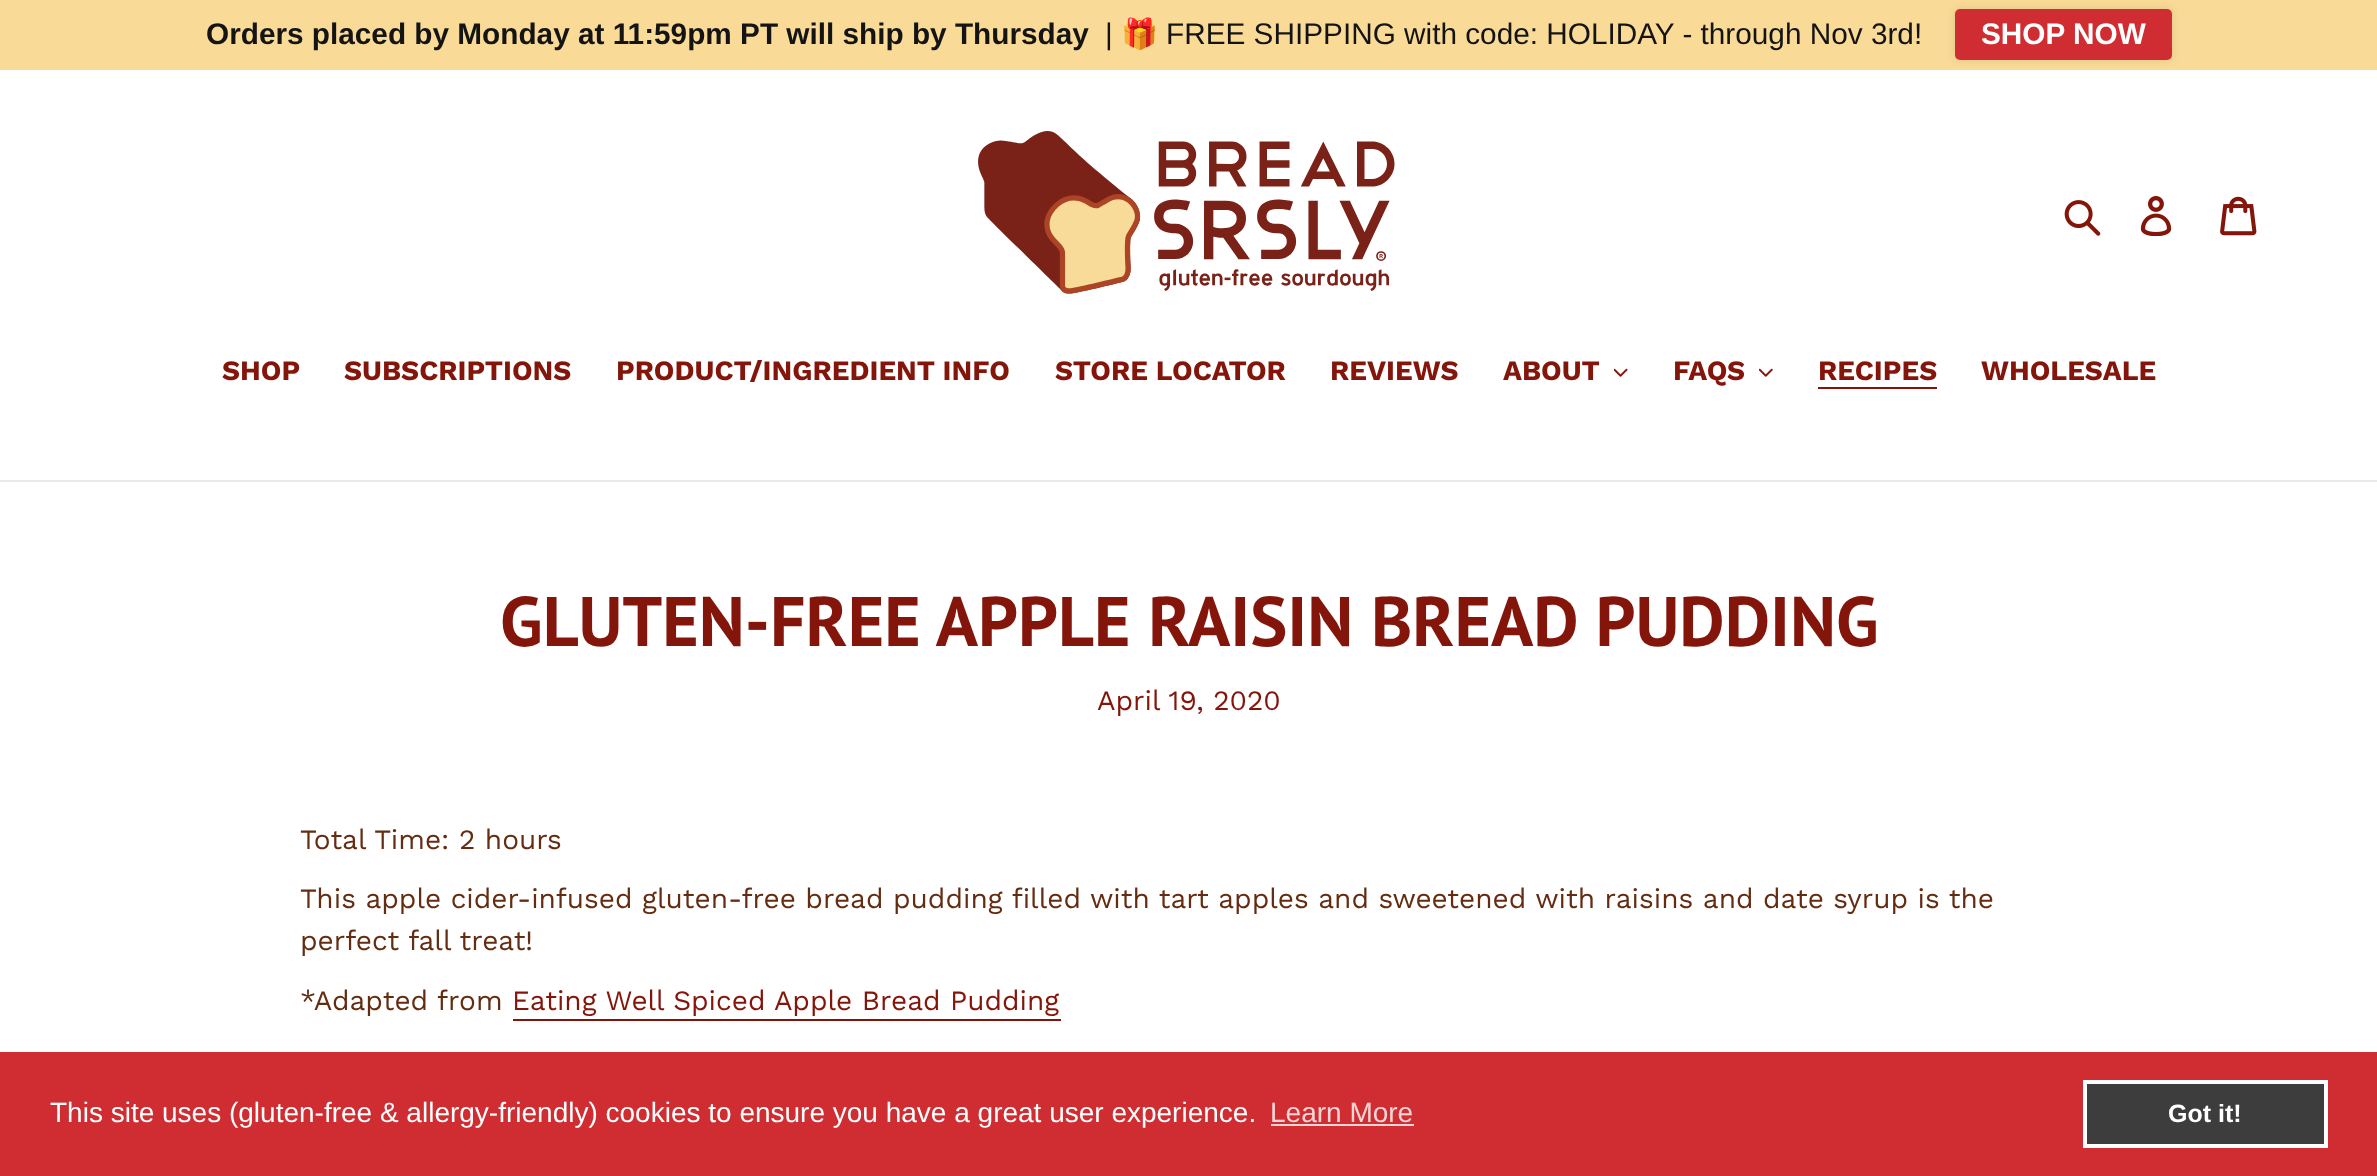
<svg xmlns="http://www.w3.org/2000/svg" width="2377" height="1176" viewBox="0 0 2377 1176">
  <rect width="100%" height="100%" fill="rgb(255,255,255)"/>
  <rect x="0" y="0" width="2377" height="70" fill="rgb(249,218,151)"/>
  <text x="206" y="44" font-family="Liberation Sans" font-size="29.75" font-weight="bold" fill="rgb(20,20,20)">Orders placed by Monday at 11:59pm PT will ship by Thursday</text>
  <text x="1105" y="44" font-family="Liberation Sans" font-size="29.75" fill="rgb(20,20,20)">|</text>
  <text x="1121" y="44" font-family="Noto Color Emoji" font-size="29.75" fill="rgb(20,20,20)">🎁</text>
  <text x="1166" y="44" font-family="Liberation Sans" font-size="29.75" fill="rgb(20,20,20)">FREE SHIPPING with code: HOLIDAY - through Nov 3rd!</text>
  <rect x="1955" y="9" width="217" height="51" rx="5" fill="rgba(0,0,0,0.1)" filter="blur(4.5px)"/>
  <rect x="1955" y="9" width="217" height="51" rx="5" fill="rgb(207,45,49)"/>
  <text x="1981" y="44" font-family="Liberation Sans" font-size="29.75" font-weight="bold" fill="rgb(255,255,255)">SHOP NOW</text>
  <image x="978" y="131" width="417" height="163" href="pic1.png"/>
  <image x="2064" y="200" width="37" height="36" href="pic2.png"/>
  <image x="2140" y="196" width="32" height="40" href="pic3.png"/>
  <image x="2220" y="196" width="37" height="40" href="pic4.png"/>
  <rect x="0" y="480" width="2377" height="2" fill="rgb(232,233,235)"/>
  <g font-family="Work Sans" font-size="28" font-weight="bold" fill="rgb(132,21,11)">
    <text x="222" y="380">SHOP</text>
    <text x="344" y="380">SUBSCRIPTIONS</text>
    <text x="616" y="380">PRODUCT/INGREDIENT INFO</text>
    <text x="1055" y="380">STORE LOCATOR</text>
    <text x="1330" y="380">REVIEWS</text>
    <text x="1503" y="380">ABOUT</text>
  </g>
  <image x="1614" y="368" width="14" height="9" href="pic5.png"/>
  <text x="1673" y="380" font-family="Work Sans" font-size="28" font-weight="bold" fill="rgb(132,21,11)">FAQS</text>
  <image x="1759" y="368" width="14" height="9" href="pic6.png"/>
  <text x="1818" y="380" font-family="Work Sans" font-size="28" font-weight="bold" fill="rgb(132,21,11)">RECIPES</text>
  <rect x="1818" y="387" width="119" height="2" fill="rgb(132,21,11)"/>
  <text x="1981" y="380" font-family="Work Sans" font-size="28" font-weight="bold" fill="rgb(132,21,11)">WHOLESALE</text>
  <text x="500" y="646" font-family="PT Sans" font-size="70" font-weight="bold" fill="rgb(132,21,11)">GLUTEN-FREE APPLE RAISIN BREAD PUDDING</text>
  <text x="1097" y="710" font-family="Work Sans" font-size="28" fill="rgb(132,21,11)">April 19, 2020</text>
  <g font-family="Work Sans" font-size="28" fill="rgb(100,45,17)">
    <text x="300" y="849">Total Time: 2 hours</text>
    <text>
      <tspan x="300" y="908">This apple cider-infused gluten-free bread pudding filled with tart apples and sweetened with raisins and date syrup is the</tspan>
      <tspan x="300" y="950">perfect fall treat!</tspan>
    </text>
    <text x="300" y="1010">*Adapted from</text>
  </g>
  <text x="512" y="1010" font-family="Work Sans" font-size="28" fill="rgb(132,21,11)">Eating Well Spiced Apple Bread Pudding</text>
  <rect x="513" y="1019" width="548" height="2" fill="rgb(132,21,11)"/>
  <rect x="0" y="1052" width="2377" height="124" fill="rgb(207,45,49)"/>
  <text x="50" y="1122" font-family="Liberation Sans" font-size="28" fill="rgb(255,255,255)">This site uses (gluten-free &amp; allergy-friendly) cookies to ensure you have a great user experience.</text>
  <text x="1270" y="1122" font-family="Liberation Sans" font-size="28" fill="rgb(245,213,214)">Learn More</text>
  <rect x="1271" y="1124" width="143" height="2" fill="rgb(245,213,214)"/>
  <rect x="2085" y="1082" width="241" height="64" fill="rgb(61,61,61)" stroke="rgb(255,255,255)" stroke-width="4"/>
  <text x="2168" y="1122" font-family="Liberation Sans" font-size="25" font-weight="bold" fill="rgb(255,255,255)">Got it!</text>
</svg>
